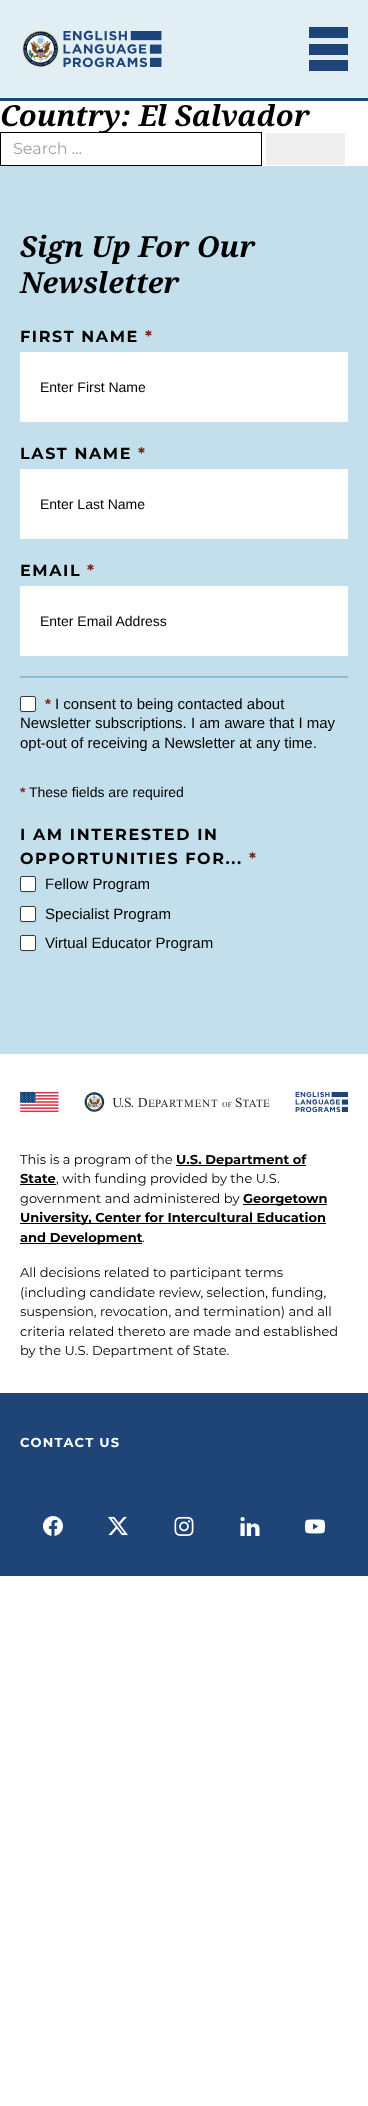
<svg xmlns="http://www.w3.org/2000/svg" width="368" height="2106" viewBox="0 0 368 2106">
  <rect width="100%" height="100%" fill="rgb(255,255,255)"/>
  <rect x="0" y="0" width="368" height="98" fill="rgb(225,238,244)"/>
  <rect x="0" y="98" width="368" height="3" fill="rgb(31,68,120)"/>
  <image x="22" y="30" width="140" height="38" href="pic1.png"/>
  <rect x="309" y="27" width="39" height="11" fill="rgb(31,68,120)"/>
  <rect x="309" y="44" width="39" height="11" fill="rgb(31,68,120)"/>
  <rect x="309" y="60" width="39" height="11" fill="rgb(31,68,120)"/>
  <text x="0" y="126" font-family="Droid Serif" font-size="29" font-weight="bold" font-style="italic" fill="rgb(0,0,0)">Country: El Salvador</text>
  <rect x="0.5" y="132.5" width="261" height="33" fill="none" stroke="rgb(0,0,0)"/>
  <text x="13" y="154" font-family="Montserrat" font-size="16" fill="rgb(161,161,170)">Search …</text>
  <rect x="266" y="133" width="79" height="32" fill="rgb(239,239,239)"/>
  <rect x="0" y="166" width="368" height="888" fill="rgb(196,223,236)"/>
  <g font-family="Droid Serif" font-size="29" font-weight="bold" font-style="italic" fill="rgb(0,0,0)">
    <text>
      <tspan x="20" y="257">Sign Up For Our</tspan>
      <tspan x="20" y="293">Newsletter</tspan>
    </text>
  </g>
  <text x="20" y="342" font-family="Montserrat" font-size="16" font-weight="bold" letter-spacing="1.6" fill="rgb(0,0,0)">FIRST NAME</text>
  <text x="145" y="342" font-family="Montserrat" font-size="16" font-weight="bold" letter-spacing="1.6" fill="rgb(124,35,17)">*</text>
  <rect x="20" y="352" width="328" height="70" fill="rgb(255,255,255)"/>
  <text x="40" y="392" font-family="Liberation Sans" font-size="14" fill="rgb(0,0,0)">Enter First Name</text>
  <text x="20" y="459" font-family="Montserrat" font-size="16" font-weight="bold" letter-spacing="1.6" fill="rgb(0,0,0)">LAST NAME</text>
  <text x="138" y="459" font-family="Montserrat" font-size="16" font-weight="bold" letter-spacing="1.6" fill="rgb(124,35,17)">*</text>
  <rect x="20" y="469" width="328" height="70" fill="rgb(255,255,255)"/>
  <text x="40" y="509" font-family="Liberation Sans" font-size="14" fill="rgb(0,0,0)">Enter Last Name</text>
  <text x="20" y="576" font-family="Montserrat" font-size="16" font-weight="bold" letter-spacing="1.6" fill="rgb(0,0,0)">EMAIL</text>
  <text x="87" y="576" font-family="Montserrat" font-size="16" font-weight="bold" letter-spacing="1.6" fill="rgb(124,35,17)">*</text>
  <rect x="20" y="586" width="328" height="70" fill="rgb(255,255,255)"/>
  <text x="40" y="626" font-family="Liberation Sans" font-size="14" fill="rgb(0,0,0)">Enter Email Address</text>
  <rect x="20" y="676" width="328" height="2" fill="rgb(135,190,217)"/>
  <rect x="20" y="697" width="16" height="16" rx="2" fill="rgba(18,18,23,0.05)" filter="blur(1px)"/>
  <rect x="20.5" y="696.5" width="15" height="15" rx="1.5" fill="rgb(255,255,255)" stroke="rgb(55,57,61)"/>
  <text x="45" y="709" font-family="Liberation Sans" font-size="15" font-weight="bold" fill="rgb(124,35,17)">*</text>
  <g font-family="Liberation Sans" font-size="15" fill="rgb(0,0,0)">
    <text x="55" y="709">I consent to being contacted about</text>
    <text>
      <tspan x="20" y="728">Newsletter subscriptions. I am aware that I may</tspan>
      <tspan x="20" y="748">opt-out of receiving a Newsletter at any time.</tspan>
    </text>
  </g>
  <text x="20" y="797" font-family="Liberation Sans" font-size="14" font-weight="bold" fill="rgb(124,35,17)">*</text>
  <text x="29" y="797" font-family="Liberation Sans" font-size="14" fill="rgb(0,0,0)">These fields are required</text>
  <g font-family="Montserrat" font-size="16" font-weight="bold" letter-spacing="1.6" fill="rgb(0,0,0)">
    <text>
      <tspan x="20" y="840">I AM INTERESTED IN</tspan>
      <tspan x="20" y="864">OPPORTUNITIES FOR...</tspan>
    </text>
  </g>
  <text x="249" y="864" font-family="Montserrat" font-size="16" font-weight="bold" letter-spacing="1.6" fill="rgb(124,35,17)">*</text>
  <rect x="20" y="877" width="16" height="16" rx="2" fill="rgba(18,18,23,0.05)" filter="blur(1px)"/>
  <rect x="20.5" y="876.5" width="15" height="15" rx="1.5" fill="rgb(255,255,255)" stroke="rgb(55,57,61)"/>
  <text x="45" y="889" font-family="Liberation Sans" font-size="15" fill="rgb(0,0,0)">Fellow Program</text>
  <rect x="20" y="907" width="16" height="16" rx="2" fill="rgba(18,18,23,0.05)" filter="blur(1px)"/>
  <rect x="20.5" y="906.5" width="15" height="15" rx="1.5" fill="rgb(255,255,255)" stroke="rgb(55,57,61)"/>
  <text x="45" y="919" font-family="Liberation Sans" font-size="15" fill="rgb(0,0,0)">Specialist Program</text>
  <rect x="20" y="936" width="16" height="16" rx="2" fill="rgba(18,18,23,0.05)" filter="blur(1px)"/>
  <rect x="20.5" y="935.5" width="15" height="15" rx="1.5" fill="rgb(255,255,255)" stroke="rgb(55,57,61)"/>
  <text x="45" y="948" font-family="Liberation Sans" font-size="15" fill="rgb(0,0,0)">Virtual Educator Program</text>
  <image x="20" y="1091" width="328" height="22" href="pic2.png"/>
  <text x="20" y="1164" font-family="Montserrat" font-size="13" fill="rgb(0,0,0)">This is a program of the</text>
  <rect x="176" y="1165" width="130" height="1" fill="rgb(0,0,0)"/>
  <g font-family="Montserrat" font-size="13" font-weight="bold" fill="rgb(0,0,0)">
    <text x="176" y="1164">U.S. Department of</text>
    <text x="20" y="1183">State</text>
  </g>
  <rect x="20" y="1184" width="36" height="1" fill="rgb(0,0,0)"/>
  <g font-family="Montserrat" font-size="13" fill="rgb(0,0,0)">
    <text x="56" y="1183">, with funding provided by the U.S.</text>
    <text x="20" y="1203">government and administered by</text>
  </g>
  <rect x="243" y="1204" width="84" height="1" fill="rgb(0,0,0)"/>
  <text x="243" y="1203" font-family="Montserrat" font-size="13" font-weight="bold" fill="rgb(0,0,0)">Georgetown</text>
  <rect x="20" y="1223" width="306" height="1" fill="rgb(0,0,0)"/>
  <text x="20" y="1222" font-family="Montserrat" font-size="13" font-weight="bold" fill="rgb(0,0,0)">University, Center for Intercultural Education</text>
  <rect x="20" y="1243" width="122" height="1" fill="rgb(0,0,0)"/>
  <text x="20" y="1242" font-family="Montserrat" font-size="13" font-weight="bold" fill="rgb(0,0,0)">and Development</text>
  <g font-family="Montserrat" font-size="13" fill="rgb(0,0,0)">
    <text x="142" y="1242">.</text>
    <text>
      <tspan x="20" y="1277">All decisions related to participant terms</tspan>
      <tspan x="20" y="1297">(including candidate review, selection, funding,</tspan>
      <tspan x="20" y="1316">suspension, revocation, and termination) and all</tspan>
      <tspan x="20" y="1336">criteria related thereto are made and established</tspan>
      <tspan x="20" y="1355">by the U.S. Department of State.</tspan>
    </text>
  </g>
  <rect x="0" y="1393" width="368" height="183" fill="rgb(31,68,120)"/>
  <text x="20" y="1447" font-family="Montserrat" font-size="13" font-weight="bold" letter-spacing="1.25" fill="rgb(255,255,255)">CONTACT US</text>
  <image x="43" y="1516" width="20" height="20" href="pic3.png"/>
  <image x="108" y="1516" width="20" height="20" href="pic4.png"/>
  <image x="174" y="1516" width="20" height="20" href="pic5.png"/>
  <image x="240" y="1516" width="20" height="20" href="pic6.png"/>
  <image x="305" y="1519" width="20" height="15" href="pic7.png"/>
</svg>
